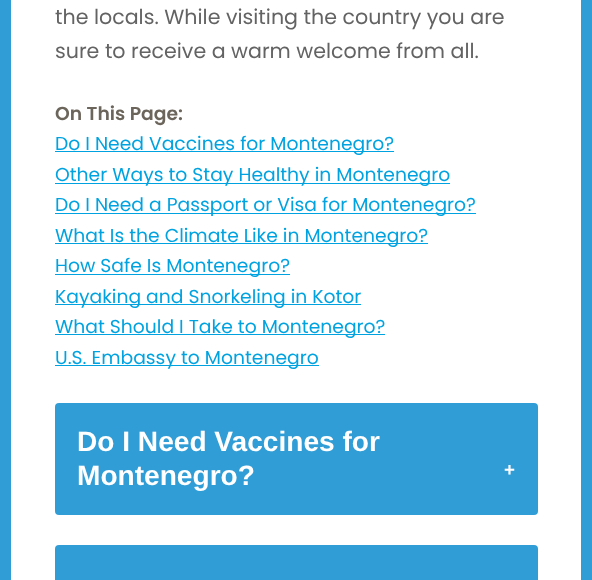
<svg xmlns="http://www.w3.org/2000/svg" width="592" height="580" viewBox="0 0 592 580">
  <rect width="100%" height="100%" fill="rgb(49,157,214)"/>
  <rect x="11" y="0" width="570" height="580" fill="rgb(255,255,255)"/>
  <g font-family="Poppins" font-size="20.6" fill="rgb(99,99,99)">
    <text>
      <tspan x="55" y="24">the locals. While visiting the country you are</tspan>
      <tspan x="55" y="58">sure to receive a warm welcome from all.</tspan>
    </text>
  </g>
  <text x="55" y="120" font-family="Poppins" font-size="18.75" font-weight="600" fill="rgb(107,101,91)">On This Page:</text>
  <rect x="55" y="151" width="339" height="1" fill="rgb(0,163,224)"/>
  <text x="55" y="150" font-family="Poppins" font-size="18.75" fill="rgb(0,163,224)">Do I Need Vaccines for Montenegro?</text>
  <rect x="55" y="183" width="395" height="1" fill="rgb(0,163,224)"/>
  <text x="55" y="181" font-family="Poppins" font-size="18.75" fill="rgb(0,163,224)">Other Ways to Stay Healthy in Montenegro</text>
  <rect x="55" y="213" width="421" height="1" fill="rgb(0,163,224)"/>
  <text x="55" y="211" font-family="Poppins" font-size="18.75" fill="rgb(0,163,224)">Do I Need a Passport or Visa for Montenegro?</text>
  <rect x="55" y="243" width="373" height="1" fill="rgb(0,163,224)"/>
  <text x="55" y="242" font-family="Poppins" font-size="18.75" fill="rgb(0,163,224)">What Is the Climate Like in Montenegro?</text>
  <rect x="55" y="274" width="235" height="1" fill="rgb(0,163,224)"/>
  <text x="55" y="272" font-family="Poppins" font-size="18.75" fill="rgb(0,163,224)">How Safe Is Montenegro?</text>
  <rect x="55" y="304" width="306" height="1" fill="rgb(0,163,224)"/>
  <text x="55" y="303" font-family="Poppins" font-size="18.75" fill="rgb(0,163,224)">Kayaking and Snorkeling in Kotor</text>
  <rect x="55" y="334" width="330" height="1" fill="rgb(0,163,224)"/>
  <text x="55" y="333" font-family="Poppins" font-size="18.75" fill="rgb(0,163,224)">What Should I Take to Montenegro?</text>
  <rect x="55" y="365" width="264" height="1" fill="rgb(0,163,224)"/>
  <text x="55" y="364" font-family="Poppins" font-size="18.75" fill="rgb(0,163,224)">U.S. Embassy to Montenegro</text>
  <rect x="55" y="403" width="483" height="112" rx="4" fill="rgb(49,157,214)"/>
  <g font-family="Liberation Sans" font-size="28.1" font-weight="bold" fill="rgb(255,255,255)">
    <text>
      <tspan x="77" y="451">Do I Need Vaccines for</tspan>
      <tspan x="77" y="485">Montenegro?</tspan>
    </text>
  </g>
  <text x="504" y="476" font-family="Liberation Sans" font-size="18.75" font-weight="bold" fill="rgb(255,255,255)">+</text>
  <rect x="55" y="545" width="483" height="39" rx="4" fill="rgb(49,157,214)"/>
</svg>
